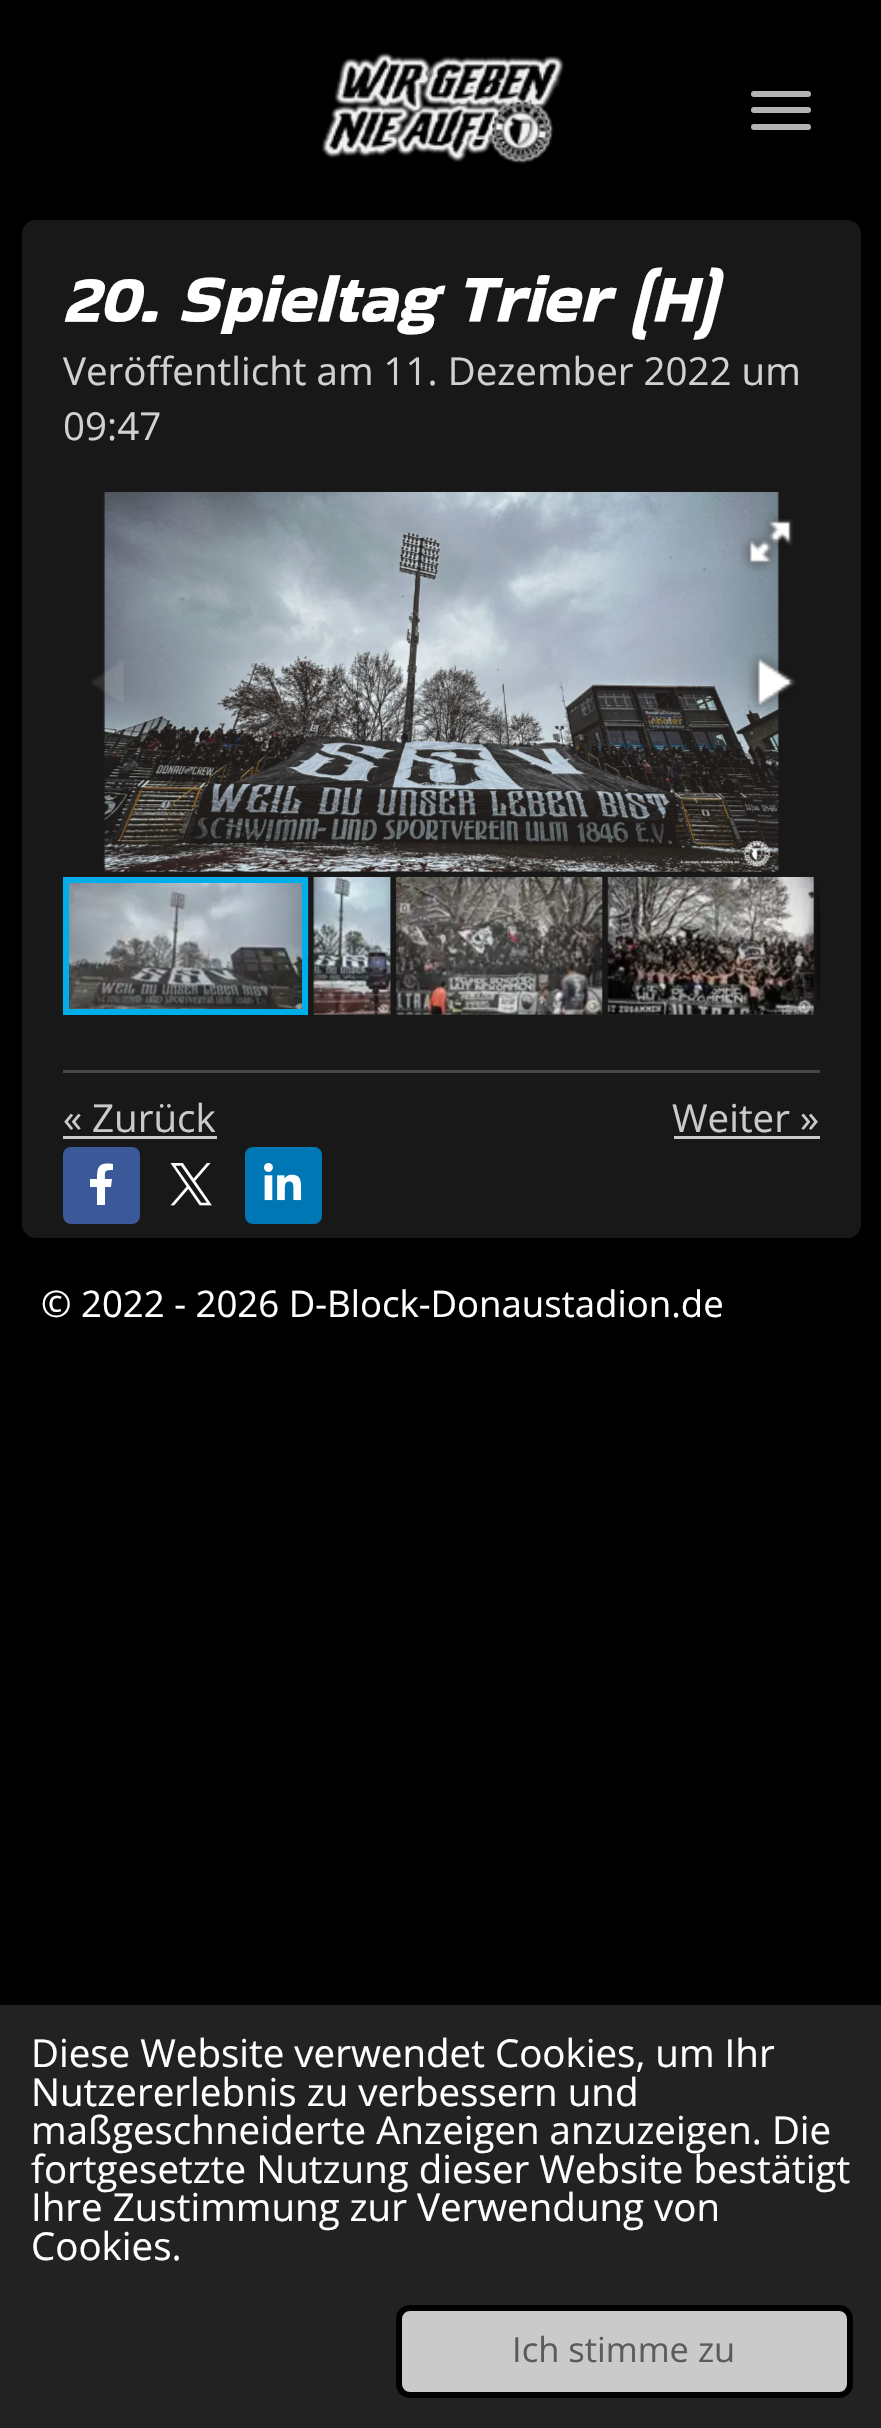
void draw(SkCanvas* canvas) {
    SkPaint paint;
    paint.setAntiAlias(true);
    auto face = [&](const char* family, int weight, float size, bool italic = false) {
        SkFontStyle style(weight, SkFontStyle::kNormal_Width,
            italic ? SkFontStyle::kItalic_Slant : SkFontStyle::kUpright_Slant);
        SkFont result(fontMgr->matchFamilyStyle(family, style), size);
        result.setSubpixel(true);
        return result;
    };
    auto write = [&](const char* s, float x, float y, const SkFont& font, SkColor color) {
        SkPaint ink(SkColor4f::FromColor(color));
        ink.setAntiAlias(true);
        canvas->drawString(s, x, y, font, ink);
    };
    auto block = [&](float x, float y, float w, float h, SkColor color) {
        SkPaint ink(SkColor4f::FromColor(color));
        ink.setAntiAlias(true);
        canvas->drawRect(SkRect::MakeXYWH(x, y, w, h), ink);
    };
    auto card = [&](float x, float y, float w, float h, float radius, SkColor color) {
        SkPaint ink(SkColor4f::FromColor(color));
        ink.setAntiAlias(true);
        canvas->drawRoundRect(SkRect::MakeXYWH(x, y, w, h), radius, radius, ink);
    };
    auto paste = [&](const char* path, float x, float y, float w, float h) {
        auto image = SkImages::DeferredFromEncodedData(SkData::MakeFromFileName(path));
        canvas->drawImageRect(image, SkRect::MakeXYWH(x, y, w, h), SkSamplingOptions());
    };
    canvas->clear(SK_ColorBLACK);
    paste("pic1.png", 321, 52, 243, 112);
    card(751, 107, 60, 6, 3, SkColorSetRGB(179, 179, 179));
    card(751, 91, 60, 6, 3, SkColorSetRGB(179, 179, 179));
    card(751, 124, 60, 6, 3, SkColorSetRGB(179, 179, 179));
    card(22, 220, 839, 1018, 14, SkColorSetRGB(24, 24, 24));
    auto kFont1 = face("Bakbak One", 400, 68.5f, true);
    write("20. Spieltag Trier (H)", 63, 322, kFont1, SK_ColorWHITE);
    auto kFont2 = face("Open Sans", 400, 38.5f);
    write("Veröffentlicht am 11. Dezember 2022 um", 63, 385, kFont2, SkColorSetRGB(209, 209, 209));
    write("09:47", 63, 440, kFont2, SkColorSetRGB(209, 209, 209));
    paste("pic2.png", 103, 492, 676, 380);
    paste("pic3.png", 740, 512, 53, 60);
    paste("pic4.png", 90, 660, 34, 43);
    paste("pic5.png", 747, 653, 49, 59);
    paste("pic6.png", 69, 877, 240, 138);
    paint.setStyle(SkPaint::kStroke_Style);
    paint.setStrokeWidth(6);
    paint.setColor(SkColorSetRGB(0, 175, 234));
    canvas->drawRect(SkRect::MakeXYWH(66, 880, 239, 132), paint);
    block(314, 877, 77, 138, SkColorSetRGB(45, 45, 45));
    paste("pic7.png", 313, 877, 78, 138);
    block(396, 877, 206, 138, SkColorSetRGB(45, 45, 45));
    paste("pic8.png", 395, 877, 208, 138);
    block(608, 877, 206, 138, SkColorSetRGB(45, 45, 45));
    paste("pic9.png", 607, 877, 207, 138);
    paint.setStyle(SkPaint::kFill_Style);
    {
        const SkColor colors[] = {SkColorSetARGB(102, 0, 0, 0), SkColorSetARGB(0, 0, 0, 0)};
        const float stops[] = {0, 1};
        SkMatrix m = SkMatrix::Translate(820, 946).preScale(14, 74);
        paint.setShader(SkGradientShader::MakeRadial({0, 0}, 1, colors, stops, 2, SkTileMode::kClamp, 0, &m));
        paint.setAlpha(255);
    }
    canvas->drawRect(SkRect::MakeXYWH(807, 885, 13, 115), paint);
    {
        const SkColor colors[] = {SkColorSetARGB(0, 0, 0, 0), SkColorSetARGB(51, 0, 0, 0), SkColorSetARGB(77, 0, 0, 0), SkColorSetARGB(0, 0, 0, 0)};
        const float stops[] = {0, 0.25f, 0.75f, 1};
        const SkPoint ends[] = {{818, 872}, {818, 1020}};
        paint.setShader(SkGradientShader::MakeLinear(ends, colors, stops, 4, SkTileMode::kClamp));
        paint.setAlpha(255);
    }
    canvas->drawRect(SkRect::MakeXYWH(817, 895, 3, 111), paint);
    block(63, 1070, 757, 3, SkColorSetRGB(70, 70, 70));
    write("« Zurück", 63, 1132, kFont2, SkColorSetRGB(202, 202, 202));
    block(63, 1136, 154, 3, SkColorSetRGB(202, 202, 202));
    write("Weiter »", 672, 1132, kFont2, SkColorSetRGB(202, 202, 202));
    block(674, 1136, 146, 3, SkColorSetRGB(202, 202, 202));
    card(63, 1147, 77, 77, 8, SkColorSetRGB(59, 89, 152));
    paint.setShader(nullptr);
    paint.setColor(SK_ColorWHITE);
    canvas->drawPath(SkPathBuilder().moveTo(111, 1187).lineTo(112, 1179).lineTo(105, 1179).cubicTo(105, 1171, 104, 1170, 113, 1170).lineTo(113, 1164).cubicTo(99, 1162, 97, 1166, 97, 1179).lineTo(90, 1179).lineTo(90, 1187).lineTo(97, 1187).lineTo(97, 1205).lineTo(105, 1205).lineTo(105, 1187).close().detach(), paint);
    paste("pic10.png", 170, 1163, 42, 43);
    card(245, 1147, 77, 77, 8, SkColorSetRGB(0, 119, 181));
    paste("pic11.png", 264, 1163, 38, 38);
    auto kFont3 = face("Open Sans", 400, 36.6f);
    write("© 2022 - 2026 D-Block-Donaustadion.de", 41, 1317, kFont3, SK_ColorWHITE);
    block(0, 2005, 881, 423, SkColorSetRGB(34, 34, 34));
    write("Diese Website verwendet Cookies, um Ihr", 31, 2067, kFont2, SK_ColorWHITE);
    write("Nutzererlebnis zu verbessern und", 31, 2106, kFont2, SK_ColorWHITE);
    write("maßgeschneiderte Anzeigen anzuzeigen. Die", 31, 2144, kFont2, SK_ColorWHITE);
    write("fortgesetzte Nutzung dieser Website bestätigt", 31, 2183, kFont2, SK_ColorWHITE);
    write("Ihre Zustimmung zur Verwendung von", 31, 2221, kFont2, SK_ColorWHITE);
    write("Cookies.", 31, 2260, kFont2, SK_ColorWHITE);
    paint.setColor(SkColorSetRGB(202, 202, 202));
    canvas->drawRoundRect(SkRect::MakeXYWH(399, 2308, 451, 87), 11, 11, paint);
    paint.setStyle(SkPaint::kStroke_Style);
    paint.setColor(SK_ColorBLACK);
    canvas->drawRoundRect(SkRect::MakeXYWH(399, 2308, 451, 87), 11, 11, paint);
    auto kFont4 = face("Open Sans", 400, 34.5f);
    write("Ich stimme zu", 512, 2362, kFont4, SkColorSetRGB(91, 91, 91));
}
